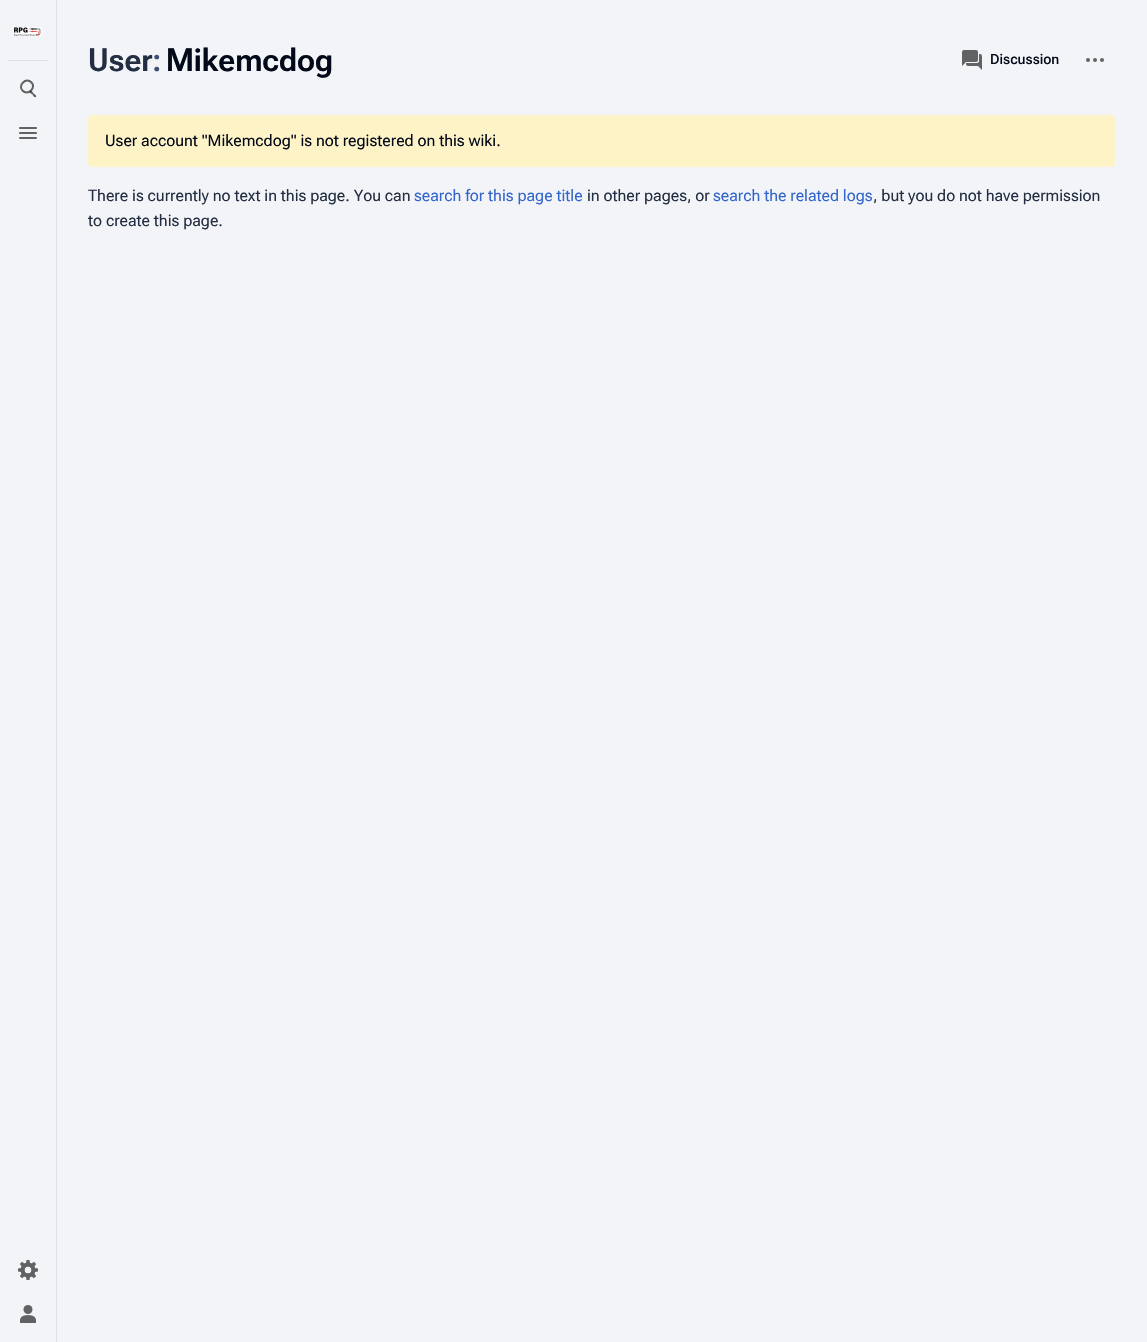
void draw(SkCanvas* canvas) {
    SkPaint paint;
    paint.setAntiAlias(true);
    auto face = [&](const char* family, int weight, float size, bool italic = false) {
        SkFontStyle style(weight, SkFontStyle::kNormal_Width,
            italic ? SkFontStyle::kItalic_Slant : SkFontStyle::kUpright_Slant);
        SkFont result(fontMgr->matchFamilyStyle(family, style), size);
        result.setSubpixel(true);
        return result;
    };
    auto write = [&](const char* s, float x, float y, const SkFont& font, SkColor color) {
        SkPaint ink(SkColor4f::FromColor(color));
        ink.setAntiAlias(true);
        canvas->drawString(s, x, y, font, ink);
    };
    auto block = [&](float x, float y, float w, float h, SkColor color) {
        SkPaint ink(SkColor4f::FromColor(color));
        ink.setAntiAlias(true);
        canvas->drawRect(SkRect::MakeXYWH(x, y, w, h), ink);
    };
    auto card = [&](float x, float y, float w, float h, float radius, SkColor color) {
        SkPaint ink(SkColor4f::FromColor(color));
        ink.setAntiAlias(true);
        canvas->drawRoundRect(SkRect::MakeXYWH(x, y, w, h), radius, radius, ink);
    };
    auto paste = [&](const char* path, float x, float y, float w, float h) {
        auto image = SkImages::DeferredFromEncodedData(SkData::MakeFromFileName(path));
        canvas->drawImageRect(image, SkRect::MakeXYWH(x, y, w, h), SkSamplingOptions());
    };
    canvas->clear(SkColorSetRGB(242, 244, 248));
    block(56, 0, 1, 1342, SkColorSetRGB(223, 224, 228));
    block(8, 60, 40, 1, SkColorSetRGB(223, 224, 228));
    paste("pic1.png", 13, 27, 29, 9);
    paint.setColor(SkColorSetRGB(97, 98, 99));
    canvas->drawPath(SkPathBuilder().moveTo(30, 91).cubicTo(31.5f, 90, 33, 92.5f, 33.5f, 93.5f).cubicTo(34.5f, 94, 37, 95.5f, 36, 97).cubicTo(34.5f, 98, 33, 95.5f, 32.5f, 94.5f).cubicTo(31.5f, 94, 29, 92.5f, 30, 91).close().detach(), paint);
    paint.setStyle(SkPaint::kStroke_Style);
    paint.setStrokeWidth(2);
    paint.setColor(SkColorSetARGB(153, 0, 0, 0));
    canvas->drawPath(SkPathBuilder().moveTo(23, 82.5f).cubicTo(28.5f, 76.5f, 37, 85, 31, 90.5f).cubicTo(25.5f, 96.5f, 17, 88, 23, 82.5f).close().detach(), paint);
    card(19, 127, 18, 2, 1, SkColorSetRGB(97, 98, 99));
    card(19, 132, 18, 2, 1, SkColorSetRGB(97, 98, 99));
    card(19, 137, 18, 2, 1, SkColorSetRGB(97, 98, 99));
    paste("pic2.png", 18, 1260, 20, 20);
    paste("pic3.png", 20, 1305, 16, 18);
    auto kFont1 = face("Roboto Flex", 600, 32);
    write("User", 88, 71, kFont1, SkColorSetRGB(36, 46, 66));
    write(":", 152, 71, kFont1, SkColorSetRGB(62, 80, 116));
    write("Mikemcdog", 166, 71, kFont1, SkColorSetRGB(2, 9, 24));
    paste("pic4.png", 962, 50, 20, 20);
    auto kFont2 = face("Roboto Flex", 500, 14);
    write("Discussion", 990, 64, kFont2, SkColorSetRGB(2, 9, 24));
    paste("pic5.png", 1086, 58, 18, 4);
    paint.setStyle(SkPaint::kFill_Style);
    paint.setColor(SkColorSetRGB(254, 243, 199));
    canvas->drawRoundRect(SkRect::MakeXYWH(88.5f, 115.5f, 1026, 51), 3.5f, 3.5f, paint);
    paint.setStyle(SkPaint::kStroke_Style);
    paint.setStrokeWidth(1);
    canvas->drawRoundRect(SkRect::MakeXYWH(88.5f, 115.5f, 1026, 51), 3.5f, 3.5f, paint);
    auto kFont3 = face("Roboto Flex", 400, 16);
    write("User account \"Mikemcdog\" is not registered on this wiki.", 105, 146, kFont3, SkColorSetRGB(2, 9, 24));
    write("There is currently no text in this page. You can", 88, 201, kFont3, SkColorSetRGB(36, 46, 66));
    write("search for this page title", 414, 201, kFont3, SkColorSetRGB(51, 102, 204));
    write("in other pages, or", 587, 201, kFont3, SkColorSetRGB(36, 46, 66));
    write("search the related logs", 713, 201, kFont3, SkColorSetRGB(51, 102, 204));
    write(", but you do not have permission", 873, 201, kFont3, SkColorSetRGB(36, 46, 66));
    write("to create this page.", 88, 226, kFont3, SkColorSetRGB(36, 46, 66));
}
